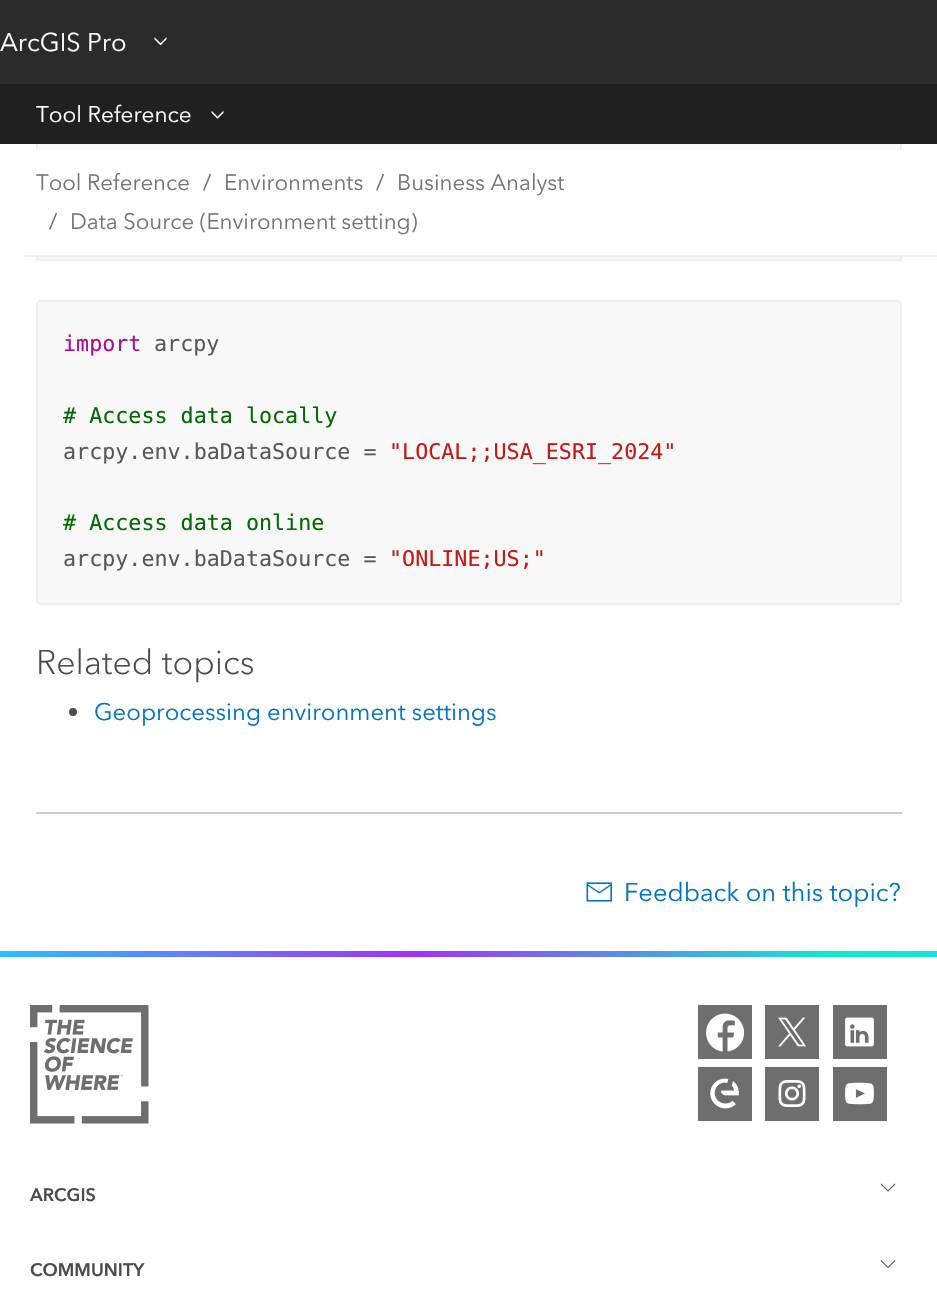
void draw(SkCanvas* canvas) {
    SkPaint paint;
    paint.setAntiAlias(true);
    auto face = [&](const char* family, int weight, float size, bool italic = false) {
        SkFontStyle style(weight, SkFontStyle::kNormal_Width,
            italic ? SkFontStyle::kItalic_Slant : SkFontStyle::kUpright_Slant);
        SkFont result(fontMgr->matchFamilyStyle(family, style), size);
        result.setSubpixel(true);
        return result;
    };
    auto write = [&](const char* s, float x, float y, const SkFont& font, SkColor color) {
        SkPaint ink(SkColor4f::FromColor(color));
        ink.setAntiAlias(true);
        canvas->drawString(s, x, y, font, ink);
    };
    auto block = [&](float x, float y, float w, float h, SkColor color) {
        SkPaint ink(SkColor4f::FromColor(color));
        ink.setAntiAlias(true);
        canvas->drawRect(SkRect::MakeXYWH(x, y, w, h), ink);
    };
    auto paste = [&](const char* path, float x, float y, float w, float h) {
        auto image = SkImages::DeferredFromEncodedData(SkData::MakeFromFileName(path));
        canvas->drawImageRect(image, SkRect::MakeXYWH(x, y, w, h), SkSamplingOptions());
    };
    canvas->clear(SK_ColorWHITE);
    block(38, 144, 862, 115, SkColorSetRGB(248, 248, 248));
    paint.setStyle(SkPaint::kStroke_Style);
    paint.setStrokeWidth(2);
    paint.setColor(SkColorSetRGB(239, 239, 239));
    canvas->drawRect(SkRect::MakeXYWH(37, 49, 864, 211), paint);
    block(0, 0, 937, 84, SkColorSetRGB(43, 43, 43));
    auto kFont1 = face("Avenir Next", 400, 25.5f);
    write("ArcGIS Pro", 0, 51, kFont1, SK_ColorWHITE);
    paste("pic1.png", 154, 37, 13, 9);
    block(0, 84, 937, 60, SkColorSetRGB(32, 32, 32));
    auto kFont2 = face("Avenir Next", 400, 22.5f);
    write("Tool Reference", 36, 122, kFont2, SK_ColorWHITE);
    paste("pic2.png", 211, 110, 13, 9);
    block(36, 150, 866, 105, SK_ColorWHITE);
    block(24, 255, 913, 2, SkColorSetRGB(237, 237, 237));
    auto kFont3 = face("Avenir Next", 400, 22.25f);
    write("Tool Reference", 36, 190, kFont3, SkColorSetRGB(117, 117, 117));
    write("/", 203, 190, kFont3, SkColorSetRGB(110, 110, 110));
    write("Environments", 224, 190, kFont3, SkColorSetRGB(117, 117, 117));
    write("/", 376, 190, kFont3, SkColorSetRGB(110, 110, 110));
    write("Business Analyst", 397, 190, kFont3, SkColorSetRGB(117, 117, 117));
    write("/", 49, 229, kFont3, SkColorSetRGB(110, 110, 110));
    write("Data Source (Environment setting)", 70, 229, kFont3, SkColorSetRGB(117, 117, 117));
    paint.setStyle(SkPaint::kFill_Style);
    paint.setColor(SkColorSetRGB(248, 248, 248));
    canvas->drawRoundRect(SkRect::MakeXYWH(37, 301, 864, 303), 4, 4, paint);
    paint.setStyle(SkPaint::kStroke_Style);
    paint.setColor(SkColorSetRGB(239, 239, 239));
    canvas->drawRoundRect(SkRect::MakeXYWH(37, 301, 864, 303), 4, 4, paint);
    auto kFont4 = face("DejaVu Sans Mono", 400, 21.7f);
    write("import", 63, 351, kFont4, SkColorSetRGB(170, 13, 145));
    write("arcpy", 154, 351, kFont4, SkColorSetRGB(89, 89, 89));
    write("# Access data locally", 63, 423, kFont4, SkColorSetRGB(0, 106, 0));
    write("arcpy.env.baDataSource =", 63, 459, kFont4, SkColorSetRGB(89, 89, 89));
    write("\"LOCAL;;USA_ESRI_2024\"", 389, 459, kFont4, SkColorSetRGB(196, 26, 22));
    write("# Access data online", 63, 530, kFont4, SkColorSetRGB(0, 106, 0));
    write("arcpy.env.baDataSource =", 63, 566, kFont4, SkColorSetRGB(89, 89, 89));
    write("\"ONLINE;US;\"", 389, 566, kFont4, SkColorSetRGB(196, 26, 22));
    auto kFont5 = face("Avenir Next", 300, 34);
    write("Related topics", 36, 674, kFont5, SkColorSetRGB(76, 76, 76));
    paint.setStyle(SkPaint::kFill_Style);
    paint.setColor(SkColorSetRGB(76, 76, 76));
    canvas->drawCircle(73, 712, 4, paint);
    auto kFont6 = face("Avenir Next", 400, 23.9f);
    write("Geoprocessing environment settings", 94, 720, kFont6, SkColorSetRGB(0, 118, 188));
    block(36, 812, 866, 2, SkColorSetRGB(204, 204, 204));
    paste("pic3.png", 586, 882, 26, 20);
    write("Feedback on this topic?", 624, 901, kFont1, SkColorSetRGB(0, 118, 188));
    {
        const SkColor colors[] = {SkColorSetRGB(41, 191, 255), SkColorSetRGB(162, 49, 255), SkColorSetRGB(13, 236, 205), SkColorSetRGB(41, 191, 255)};
        const float stops[] = {0, 0.33f, 0.67f, 1};
        const SkPoint ends[] = {{0, 954}, {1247, 954}};
        paint.setShader(SkGradientShader::MakeLinear(ends, colors, stops, 4, SkTileMode::kClamp));
        paint.setAlpha(255);
    }
    canvas->drawRect(SkRect::MakeXYWH(0, 951, 937, 6), paint);
    paste("pic4.png", 30, 1005, 119, 119);
    block(698, 1005, 54, 54, SkColorSetRGB(110, 110, 110));
    paste("pic5.png", 706, 1013, 39, 39);
    block(765, 1005, 54, 54, SkColorSetRGB(110, 110, 110));
    paste("pic6.png", 778, 1017, 29, 30);
    block(833, 1005, 54, 54, SkColorSetRGB(110, 110, 110));
    paste("pic7.png", 845, 1017, 29, 30);
    block(698, 1067, 54, 54, SkColorSetRGB(110, 110, 110));
    paste("pic8.png", 710, 1078, 29, 31);
    block(765, 1067, 54, 54, SkColorSetRGB(110, 110, 110));
    paste("pic9.png", 778, 1080, 28, 27);
    block(833, 1067, 54, 54, SkColorSetRGB(110, 110, 110));
    paste("pic10.png", 845, 1082, 29, 23);
    auto kFont7 = face("Avenir Next", 700, 18);
    write("ARCGIS", 30, 1201, kFont7, SkColorSetRGB(76, 76, 76));
    paste("pic11.png", 881, 1183, 14, 9);
    write("COMMUNITY", 30, 1276, kFont7, SkColorSetRGB(76, 76, 76));
    paste("pic12.png", 881, 1260, 14, 8);
}
